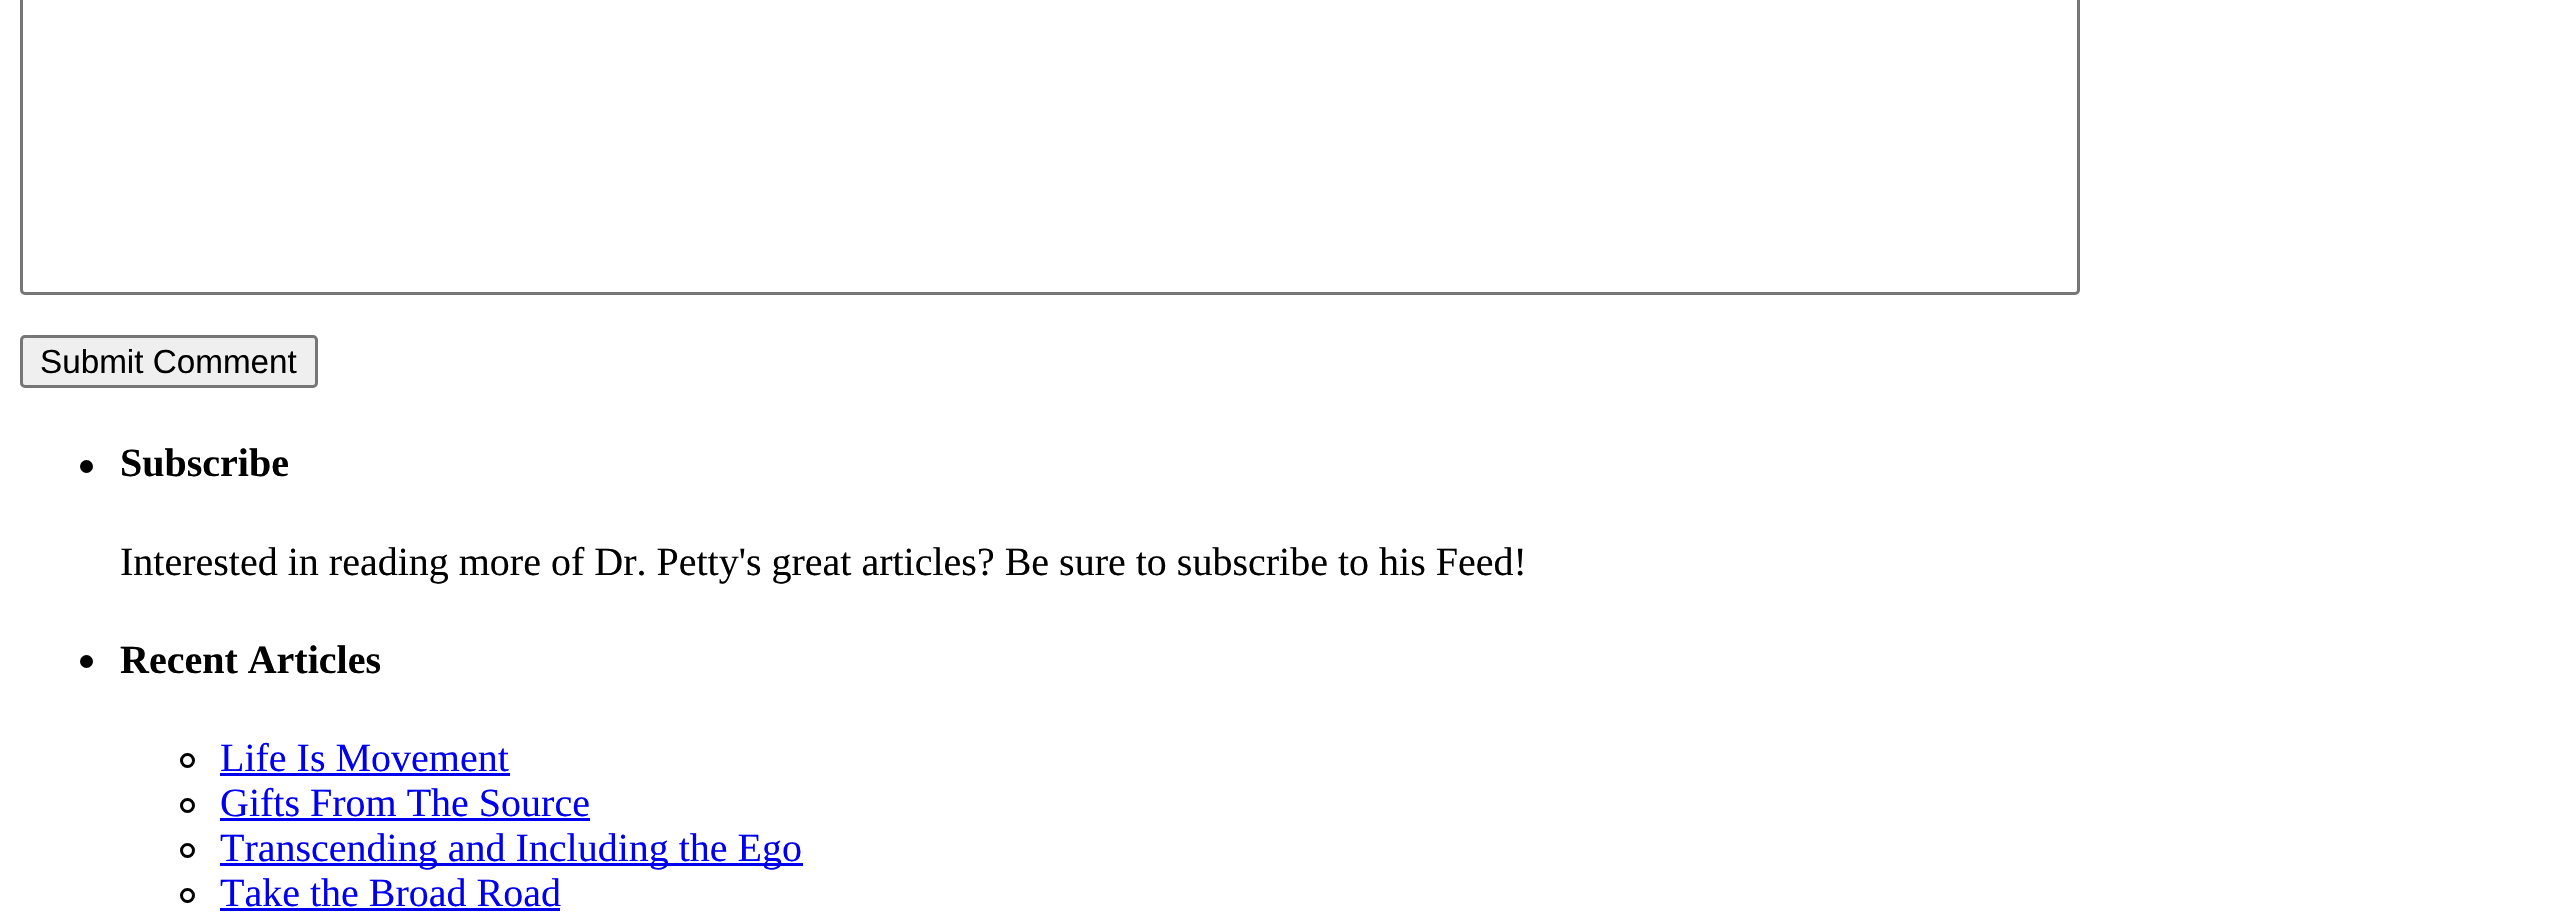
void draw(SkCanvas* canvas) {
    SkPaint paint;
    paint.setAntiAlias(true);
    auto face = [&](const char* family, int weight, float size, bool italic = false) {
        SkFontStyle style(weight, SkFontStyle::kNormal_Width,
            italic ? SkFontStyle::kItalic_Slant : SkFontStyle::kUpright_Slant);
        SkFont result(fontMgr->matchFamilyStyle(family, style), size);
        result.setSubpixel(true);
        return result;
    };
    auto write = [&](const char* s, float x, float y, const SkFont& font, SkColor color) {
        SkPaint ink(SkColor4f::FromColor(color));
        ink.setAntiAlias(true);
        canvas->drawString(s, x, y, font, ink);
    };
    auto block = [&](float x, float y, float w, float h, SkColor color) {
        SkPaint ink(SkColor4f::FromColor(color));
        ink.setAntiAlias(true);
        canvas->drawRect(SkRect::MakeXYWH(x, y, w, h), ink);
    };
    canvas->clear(SK_ColorWHITE);
    paint.setStyle(SkPaint::kStroke_Style);
    paint.setStrokeWidth(3);
    paint.setColor(SkColorSetRGB(118, 118, 118));
    canvas->drawRoundRect(SkRect::MakeXYWH(21.5f, -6.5f, 2057, 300), 3.5f, 3.5f, paint);
    paint.setStyle(SkPaint::kFill_Style);
    paint.setColor(SkColorSetRGB(239, 239, 239));
    canvas->drawRoundRect(SkRect::MakeXYWH(21.5f, 336.5f, 295, 50), 3.5f, 3.5f, paint);
    paint.setStyle(SkPaint::kStroke_Style);
    paint.setColor(SkColorSetRGB(118, 118, 118));
    canvas->drawRoundRect(SkRect::MakeXYWH(21.5f, 336.5f, 295, 50), 3.5f, 3.5f, paint);
    auto kFont1 = face("Liberation Sans", 400, 33.25f);
    write("Submit Comment", 40, 373, kFont1, SK_ColorBLACK);
    paint.setStyle(SkPaint::kFill_Style);
    paint.setColor(SK_ColorBLACK);
    canvas->drawCircle(86.5f, 466.5f, 6.5f, paint);
    auto kFont2 = face("Liberation Serif", 700, 40);
    write("Subscribe", 120, 476, kFont2, SK_ColorBLACK);
    auto kFont3 = face("Liberation Serif", 400, 40);
    write("Interested in reading more of Dr. Petty's great articles? Be sure to subscribe to his Feed!", 120, 575, kFont3, SK_ColorBLACK);
    canvas->drawCircle(86.5f, 661.5f, 6.5f, paint);
    write("Recent Articles", 120, 673, kFont2, SK_ColorBLACK);
    paint.setStyle(SkPaint::kStroke_Style);
    canvas->drawCircle(187.5f, 760.5f, 6, paint);
    write("Life Is Movement", 220, 771, kFont3, SkColorSetRGB(0, 0, 238));
    block(220, 773, 290, 3, SkColorSetRGB(0, 0, 238));
    canvas->drawCircle(187.5f, 805.5f, 6, paint);
    write("Gifts From The Source", 220, 816, kFont3, SkColorSetRGB(0, 0, 238));
    block(220, 818, 370, 3, SkColorSetRGB(0, 0, 238));
    canvas->drawCircle(187.5f, 850.5f, 6, paint);
    block(220, 863, 583, 3, SkColorSetRGB(0, 0, 238));
    write("Transcending and Including the Ego", 220, 861, kFont3, SkColorSetRGB(0, 0, 238));
    canvas->drawCircle(187.5f, 895.5f, 6, paint);
    write("Take the Broad Road", 220, 906, kFont3, SkColorSetRGB(0, 0, 238));
    block(220, 908, 340, 3, SkColorSetRGB(0, 0, 238));
}
